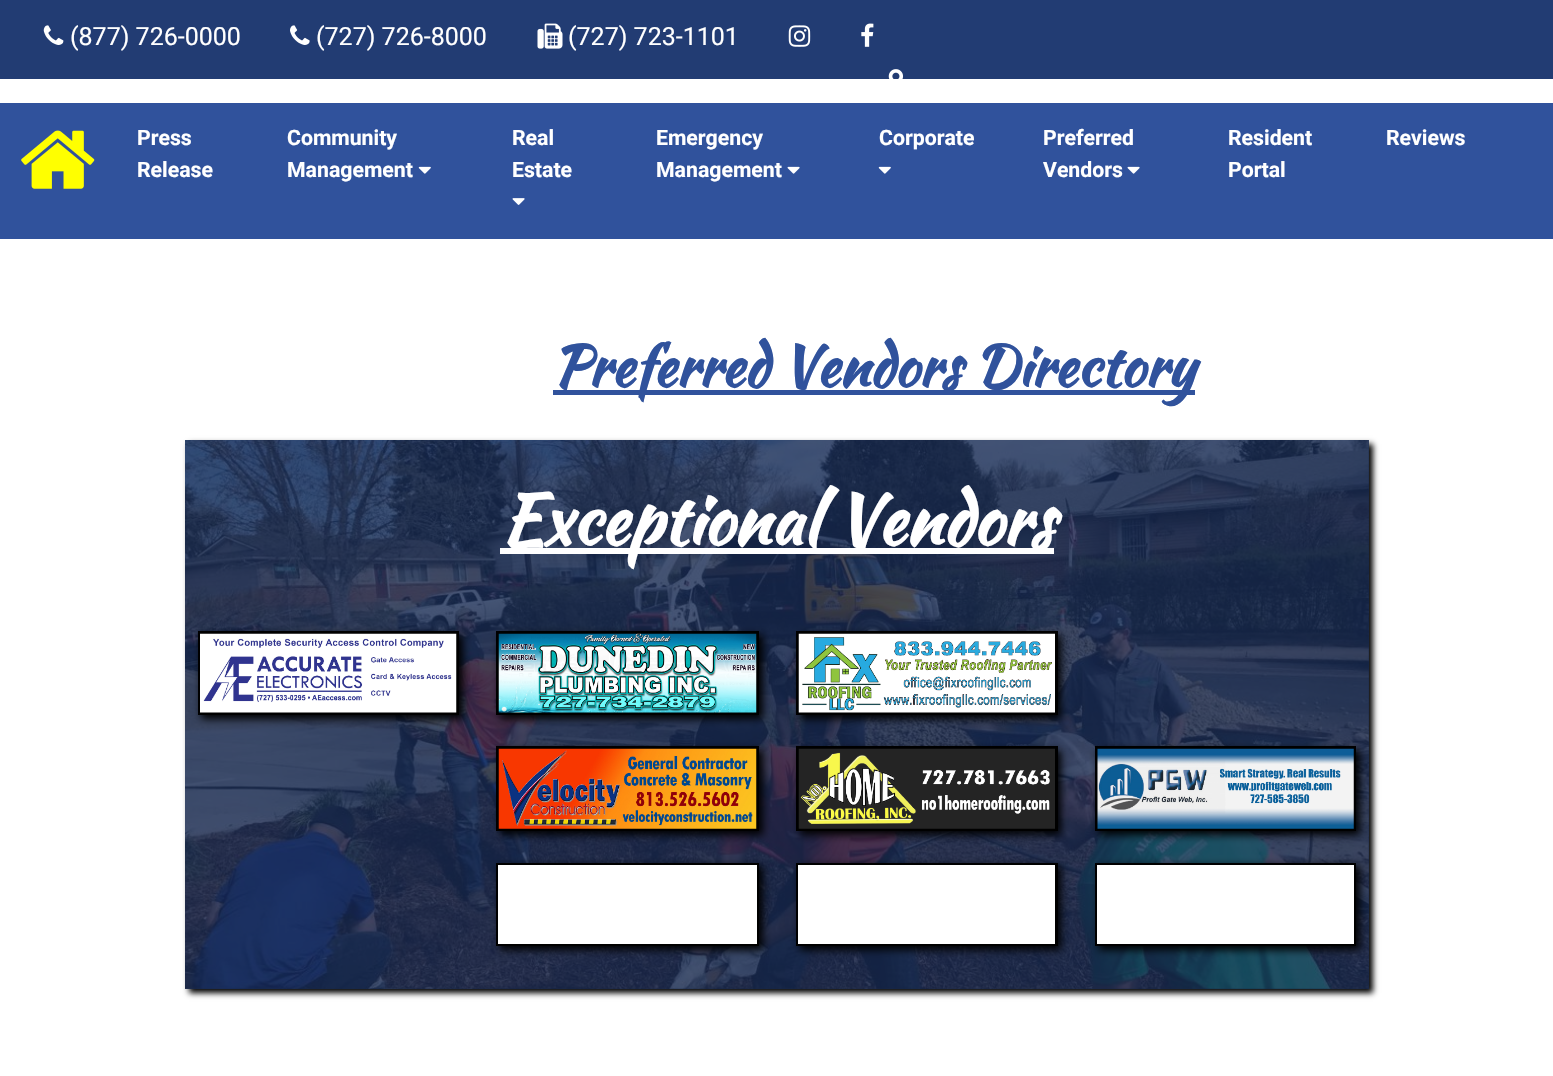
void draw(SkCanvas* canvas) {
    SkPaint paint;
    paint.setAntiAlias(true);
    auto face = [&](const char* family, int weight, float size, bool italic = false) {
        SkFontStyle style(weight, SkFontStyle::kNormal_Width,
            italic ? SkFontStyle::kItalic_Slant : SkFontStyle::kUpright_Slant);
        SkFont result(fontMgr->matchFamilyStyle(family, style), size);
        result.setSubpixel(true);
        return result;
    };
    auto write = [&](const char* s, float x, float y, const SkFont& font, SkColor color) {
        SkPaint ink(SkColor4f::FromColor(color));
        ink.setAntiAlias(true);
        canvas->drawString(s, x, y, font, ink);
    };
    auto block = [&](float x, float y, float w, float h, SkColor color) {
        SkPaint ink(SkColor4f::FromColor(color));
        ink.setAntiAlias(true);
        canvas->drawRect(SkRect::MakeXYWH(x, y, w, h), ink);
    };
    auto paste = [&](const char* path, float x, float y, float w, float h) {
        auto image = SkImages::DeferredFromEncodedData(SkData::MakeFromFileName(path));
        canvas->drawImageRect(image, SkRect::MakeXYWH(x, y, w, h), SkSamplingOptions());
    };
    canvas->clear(SK_ColorWHITE);
    block(0, 0, 1553, 79, SkColorSetRGB(34, 60, 115));
    paste("pic1.png", 43, 25, 21, 20);
    auto kFont1 = face("Roboto", 400, 25);
    write("(877) 726-0000", 70, 45, kFont1, SK_ColorWHITE);
    paste("pic2.png", 290, 25, 20, 20);
    write("(727) 726-8000", 316, 45, kFont1, SK_ColorWHITE);
    paste("pic3.png", 537, 23, 26, 26);
    write("(727) 723-1101", 568, 45, kFont1, SK_ColorWHITE);
    paste("pic4.png", 788, 25, 23, 22);
    paste("pic5.png", 861, 23, 13, 24);
    paste("pic6.png", 888, 69, 15, 10);
    block(0, 103, 1553, 136, SkColorSetRGB(48, 82, 156));
    paste("pic7.png", 21, 130, 74, 59);
    auto kFont2 = face("Roboto", 700, 21.25f);
    write("Press", 137, 145, kFont2, SK_ColorWHITE);
    write("Release", 137, 177, kFont2, SK_ColorWHITE);
    write("Community", 287, 145, kFont2, SK_ColorWHITE);
    write("Management", 287, 177, kFont2, SK_ColorWHITE);
    paste("pic8.png", 418, 166, 13, 8);
    write("Real", 512, 145, kFont2, SK_ColorWHITE);
    write("Estate", 512, 177, kFont2, SK_ColorWHITE);
    paste("pic9.png", 512, 198, 13, 7);
    write("Emergency", 656, 145, kFont2, SK_ColorWHITE);
    write("Management", 656, 177, kFont2, SK_ColorWHITE);
    paste("pic10.png", 787, 166, 13, 8);
    write("Corporate", 879, 145, kFont2, SK_ColorWHITE);
    paste("pic8.png", 878, 166, 13, 8);
    write("Preferred", 1043, 145, kFont2, SK_ColorWHITE);
    write("Vendors", 1043, 177, kFont2, SK_ColorWHITE);
    paste("pic10.png", 1127, 166, 13, 8);
    write("Resident", 1228, 145, kFont2, SK_ColorWHITE);
    write("Portal", 1228, 177, kFont2, SK_ColorWHITE);
    write("Reviews", 1386, 145, kFont2, SK_ColorWHITE);
    block(553, 390, 642, 5, SkColorSetRGB(48, 82, 156));
    auto kFont3 = face("Kaushan Script", 700, 56.25f);
    write("Preferred Vendors Directory", 552, 386, kFont3, SkColorSetRGB(48, 82, 156));
    paint.setColor(SK_ColorBLACK);
    paint.setMaskFilter(SkMaskFilter::MakeBlur(kNormal_SkBlurStyle, 3));
    canvas->drawRect(SkRect::MakeXYWH(189, 444, 1184, 549), paint);
    paint.setMaskFilter(nullptr);
    paste("pic11.png", 185, 440, 1184, 549);
    block(185, 440, 1184, 549, SkColorSetARGB(204, 24, 42, 82));
    block(500, 548, 554, 6, SK_ColorWHITE);
    auto kFont4 = face("Kaushan Script", 700, 68.75f);
    write("Exceptional Vendors", 500, 544, kFont4, SK_ColorWHITE);
    paint.setMaskFilter(SkMaskFilter::MakeBlur(kNormal_SkBlurStyle, 4));
    canvas->drawRect(SkRect::MakeXYWH(201, 635, 262, 84), paint);
    paint.setMaskFilter(nullptr);
    paint.setStyle(SkPaint::kStroke_Style);
    paint.setStrokeWidth(3);
    canvas->drawRect(SkRect::MakeXYWH(199.5f, 632.5f, 258, 81), paint);
    paste("pic12.png", 200, 633, 257, 80);
    paint.setStyle(SkPaint::kFill_Style);
    paint.setMaskFilter(SkMaskFilter::MakeBlur(kNormal_SkBlurStyle, 4));
    canvas->drawRect(SkRect::MakeXYWH(500, 635, 263, 84), paint);
    paint.setMaskFilter(nullptr);
    paint.setStyle(SkPaint::kStroke_Style);
    canvas->drawRect(SkRect::MakeXYWH(497.5f, 632.5f, 260, 81), paint);
    paste("pic13.png", 498, 633, 259, 80);
    paint.setStyle(SkPaint::kFill_Style);
    paint.setMaskFilter(SkMaskFilter::MakeBlur(kNormal_SkBlurStyle, 4));
    canvas->drawRect(SkRect::MakeXYWH(800, 635, 261, 84), paint);
    paint.setMaskFilter(nullptr);
    paint.setStyle(SkPaint::kStroke_Style);
    canvas->drawRect(SkRect::MakeXYWH(797.5f, 632.5f, 259, 81), paint);
    paste("pic14.png", 798, 633, 257, 80);
    paint.setStyle(SkPaint::kFill_Style);
    paint.setMaskFilter(SkMaskFilter::MakeBlur(kNormal_SkBlurStyle, 4));
    canvas->drawRect(SkRect::MakeXYWH(500, 750, 263, 85), paint);
    paint.setMaskFilter(nullptr);
    paint.setStyle(SkPaint::kStroke_Style);
    canvas->drawRect(SkRect::MakeXYWH(497.5f, 747.5f, 260, 82), paint);
    paste("pic15.png", 498, 748, 259, 81);
    paint.setStyle(SkPaint::kFill_Style);
    paint.setMaskFilter(SkMaskFilter::MakeBlur(kNormal_SkBlurStyle, 4));
    canvas->drawRect(SkRect::MakeXYWH(800, 750, 261, 85), paint);
    paint.setMaskFilter(nullptr);
    paint.setStyle(SkPaint::kStroke_Style);
    canvas->drawRect(SkRect::MakeXYWH(797.5f, 747.5f, 259, 82), paint);
    paste("pic16.png", 798, 748, 257, 81);
    paint.setStyle(SkPaint::kFill_Style);
    paint.setMaskFilter(SkMaskFilter::MakeBlur(kNormal_SkBlurStyle, 4));
    canvas->drawRect(SkRect::MakeXYWH(1099, 750, 261, 85), paint);
    paint.setMaskFilter(nullptr);
    paint.setStyle(SkPaint::kStroke_Style);
    canvas->drawRect(SkRect::MakeXYWH(1096.5f, 747.5f, 258, 82), paint);
    paste("pic17.png", 1097, 748, 257, 81);
    paint.setStyle(SkPaint::kFill_Style);
    paint.setMaskFilter(SkMaskFilter::MakeBlur(kNormal_SkBlurStyle, 4));
    canvas->drawRect(SkRect::MakeXYWH(500, 866, 263, 84), paint);
    paint.setMaskFilter(nullptr);
    paint.setStyle(SkPaint::kStroke_Style);
    canvas->drawRect(SkRect::MakeXYWH(497.5f, 864.5f, 260, 80), paint);
    block(498, 865, 259, 79, SK_ColorWHITE);
    paint.setStyle(SkPaint::kFill_Style);
    paint.setMaskFilter(SkMaskFilter::MakeBlur(kNormal_SkBlurStyle, 4));
    canvas->drawRect(SkRect::MakeXYWH(800, 866, 261, 84), paint);
    paint.setMaskFilter(nullptr);
    paint.setStyle(SkPaint::kStroke_Style);
    canvas->drawRect(SkRect::MakeXYWH(797.5f, 864.5f, 259, 80), paint);
    block(798, 865, 257, 79, SK_ColorWHITE);
    paint.setStyle(SkPaint::kFill_Style);
    paint.setMaskFilter(SkMaskFilter::MakeBlur(kNormal_SkBlurStyle, 4));
    canvas->drawRect(SkRect::MakeXYWH(1099, 866, 261, 84), paint);
    paint.setMaskFilter(nullptr);
    paint.setStyle(SkPaint::kStroke_Style);
    canvas->drawRect(SkRect::MakeXYWH(1096.5f, 864.5f, 258, 80), paint);
    block(1097, 865, 257, 79, SK_ColorWHITE);
}
